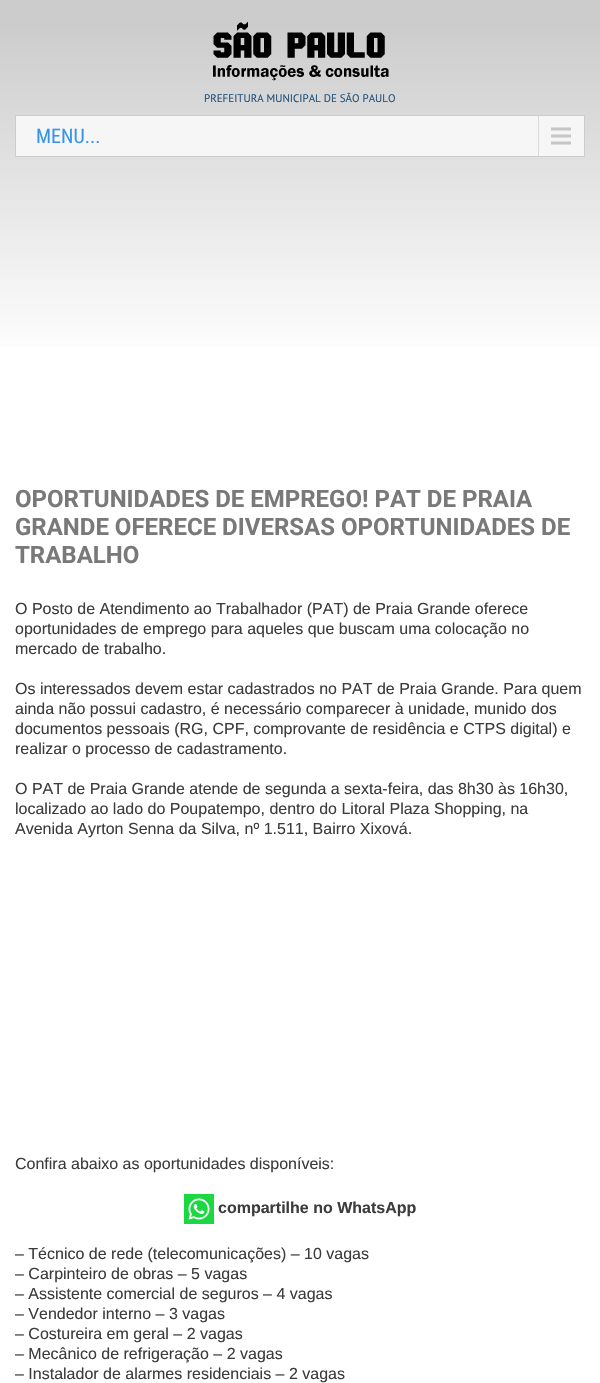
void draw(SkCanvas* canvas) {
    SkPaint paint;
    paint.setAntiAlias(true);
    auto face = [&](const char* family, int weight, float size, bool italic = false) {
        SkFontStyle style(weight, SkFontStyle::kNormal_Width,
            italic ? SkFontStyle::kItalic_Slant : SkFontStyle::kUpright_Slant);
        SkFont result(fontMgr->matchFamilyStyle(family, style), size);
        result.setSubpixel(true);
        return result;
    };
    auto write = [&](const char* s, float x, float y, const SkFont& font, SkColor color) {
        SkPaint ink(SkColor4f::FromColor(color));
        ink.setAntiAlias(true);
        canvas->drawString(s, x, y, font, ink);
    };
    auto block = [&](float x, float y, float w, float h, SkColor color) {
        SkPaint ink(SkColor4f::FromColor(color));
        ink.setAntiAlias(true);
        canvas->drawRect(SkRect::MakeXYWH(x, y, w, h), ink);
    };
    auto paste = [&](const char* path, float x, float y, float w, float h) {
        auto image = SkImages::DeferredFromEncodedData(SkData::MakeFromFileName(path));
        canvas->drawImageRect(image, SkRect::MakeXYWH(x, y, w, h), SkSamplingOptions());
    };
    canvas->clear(SK_ColorWHITE);
    {
        const SkColor colors[] = {SkColorSetRGB(204, 204, 204), SK_ColorWHITE};
        const float stops[] = {0.05f, 0.8f};
        const SkPoint ends[] = {{300, 0}, {300, 455}};
        paint.setShader(SkGradientShader::MakeLinear(ends, colors, stops, 2, SkTileMode::kClamp));
        paint.setAlpha(255);
    }
    canvas->drawRect(SkRect::MakeXYWH(0, 0, 600, 347), paint);
    paste("pic1.png", 213, 21, 176, 60);
    auto kFont1 = face("PT Sans", 400, 11);
    write("PREFEITURA MUNICIPAL DE SÃO PAULO", 204, 102, kFont1, SkColorSetRGB(33, 81, 121));
    block(16, 116, 568, 40, SkColorSetRGB(246, 246, 246));
    paste("pic2.png", 538, 116, 33, 40);
    paint.setStyle(SkPaint::kStroke_Style);
    paint.setStrokeWidth(1);
    paint.setShader(nullptr);
    paint.setColor(SkColorSetRGB(204, 204, 204));
    canvas->drawRect(SkRect::MakeXYWH(15.5f, 115.5f, 569, 41), paint);
    auto kFont2 = face("Roboto Condensed", 400, 20);
    write("MENU...", 36, 143, kFont2, SkColorSetRGB(54, 149, 235));
    auto kFont3 = face("Roboto", 700, 24);
    write("OPORTUNIDADES DE EMPREGO! PAT DE PRAIA", 15, 507, kFont3, SkColorSetRGB(121, 121, 121));
    write("GRANDE OFERECE DIVERSAS OPORTUNIDADES DE", 15, 535, kFont3, SkColorSetRGB(121, 121, 121));
    write("TRABALHO", 15, 563, kFont3, SkColorSetRGB(121, 121, 121));
    auto kFont4 = face("Liberation Sans", 400, 16);
    write("O Posto de Atendimento ao Trabalhador (PAT) de Praia Grande oferece", 15, 614, kFont4, SkColorSetRGB(60, 60, 60));
    write("oportunidades de emprego para aqueles que buscam uma colocação no", 15, 634, kFont4, SkColorSetRGB(60, 60, 60));
    write("mercado de trabalho.", 15, 654, kFont4, SkColorSetRGB(60, 60, 60));
    write("Os interessados devem estar cadastrados no PAT de Praia Grande. Para quem", 15, 694, kFont4, SkColorSetRGB(60, 60, 60));
    write("ainda não possui cadastro, é necessário comparecer à unidade, munido dos", 15, 714, kFont4, SkColorSetRGB(60, 60, 60));
    write("documentos pessoais (RG, CPF, comprovante de residência e CTPS digital) e", 15, 734, kFont4, SkColorSetRGB(60, 60, 60));
    write("realizar o processo de cadastramento.", 15, 754, kFont4, SkColorSetRGB(60, 60, 60));
    write("O PAT de Praia Grande atende de segunda a sexta-feira, das 8h30 às 16h30,", 15, 794, kFont4, SkColorSetRGB(60, 60, 60));
    write("localizado ao lado do Poupatempo, dentro do Litoral Plaza Shopping, na", 15, 814, kFont4, SkColorSetRGB(60, 60, 60));
    write("Avenida Ayrton Senna da Silva, nº 1.511, Bairro Xixová.", 15, 834, kFont4, SkColorSetRGB(60, 60, 60));
    write("Confira abaixo as oportunidades disponíveis:", 15, 1169, kFont4, SkColorSetRGB(60, 60, 60));
    paste("pic3.png", 184, 1194, 30, 30);
    auto kFont5 = face("Liberation Sans", 700, 16);
    write("compartilhe no WhatsApp", 218, 1213, kFont5, SkColorSetRGB(60, 60, 60));
    write("– Técnico de rede (telecomunicações) – 10 vagas", 15, 1259, kFont4, SkColorSetRGB(60, 60, 60));
    write("– Carpinteiro de obras – 5 vagas", 15, 1279, kFont4, SkColorSetRGB(60, 60, 60));
    write("– Assistente comercial de seguros – 4 vagas", 15, 1299, kFont4, SkColorSetRGB(60, 60, 60));
    write("– Vendedor interno – 3 vagas", 15, 1319, kFont4, SkColorSetRGB(60, 60, 60));
    write("– Costureira em geral – 2 vagas", 15, 1339, kFont4, SkColorSetRGB(60, 60, 60));
    write("– Mecânico de refrigeração – 2 vagas", 15, 1359, kFont4, SkColorSetRGB(60, 60, 60));
    write("– Instalador de alarmes residenciais – 2 vagas", 15, 1379, kFont4, SkColorSetRGB(60, 60, 60));
}
